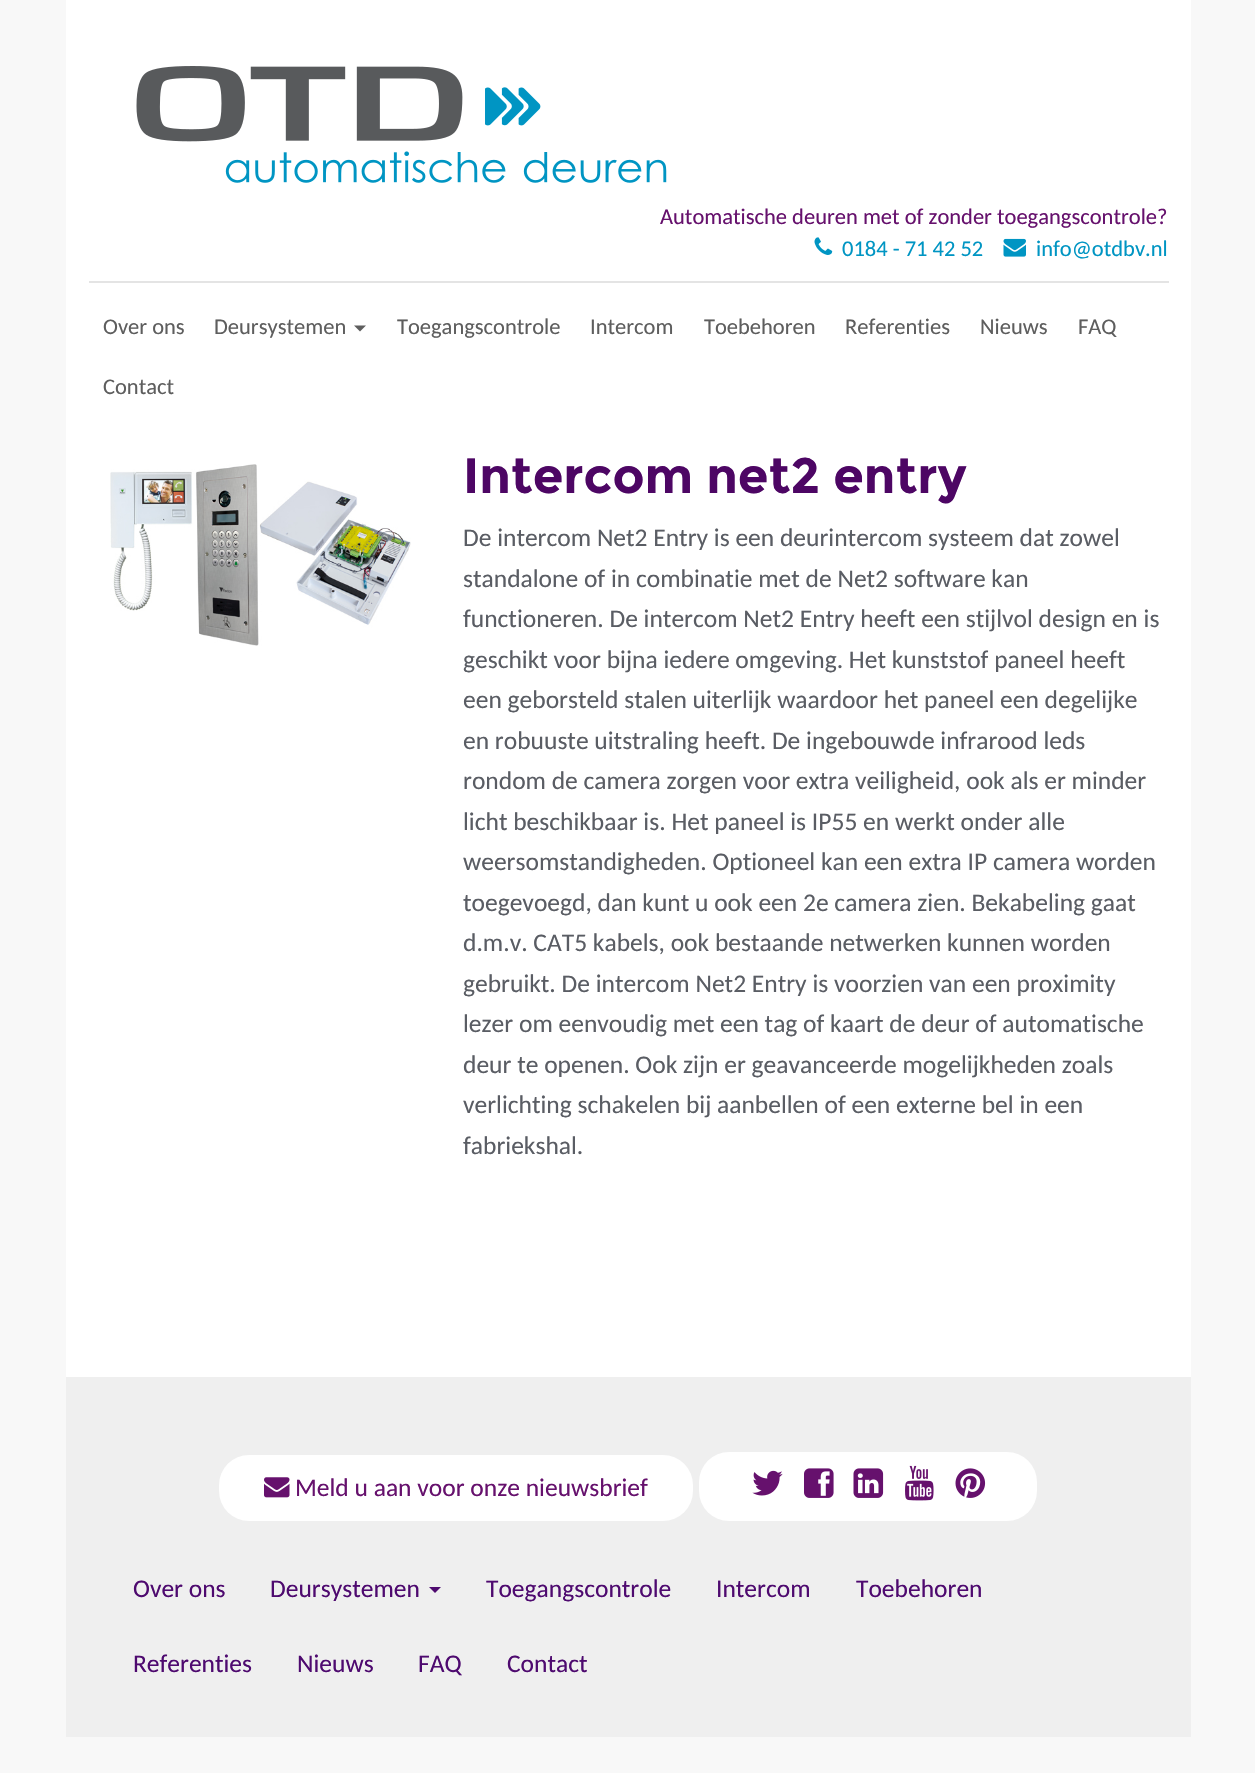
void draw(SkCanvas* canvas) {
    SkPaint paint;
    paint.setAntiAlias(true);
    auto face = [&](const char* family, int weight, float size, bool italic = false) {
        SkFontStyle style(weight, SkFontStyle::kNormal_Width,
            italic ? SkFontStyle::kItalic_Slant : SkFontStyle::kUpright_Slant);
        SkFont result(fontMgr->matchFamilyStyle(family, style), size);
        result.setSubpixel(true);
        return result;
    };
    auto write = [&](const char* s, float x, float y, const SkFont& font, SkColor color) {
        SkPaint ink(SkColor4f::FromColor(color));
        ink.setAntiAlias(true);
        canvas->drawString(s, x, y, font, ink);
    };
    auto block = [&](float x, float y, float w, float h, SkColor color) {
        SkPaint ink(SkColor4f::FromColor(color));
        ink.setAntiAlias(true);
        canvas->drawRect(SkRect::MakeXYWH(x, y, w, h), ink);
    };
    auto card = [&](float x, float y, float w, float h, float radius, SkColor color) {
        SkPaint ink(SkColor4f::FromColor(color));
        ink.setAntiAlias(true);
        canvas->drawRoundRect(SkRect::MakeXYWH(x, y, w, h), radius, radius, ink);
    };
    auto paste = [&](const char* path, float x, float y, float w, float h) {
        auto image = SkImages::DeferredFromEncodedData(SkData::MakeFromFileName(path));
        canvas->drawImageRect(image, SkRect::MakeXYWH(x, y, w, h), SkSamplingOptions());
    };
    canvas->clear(SkColorSetRGB(248, 248, 248));
    block(66, 0, 1125, 1377, SK_ColorWHITE);
    paste("pic1.png", 136, 66, 531, 117);
    block(89, 281, 1080, 2, SkColorSetRGB(228, 228, 228));
    auto kFont1 = face("Carlito", 400, 22.5f);
    write("Automatische deuren met of zonder toegangscontrole?", 660, 224, kFont1, SkColorSetRGB(102, 17, 109));
    paste("pic2.png", 814, 237, 19, 18);
    write("0184 - 71 42 52", 842, 256, kFont1, SkColorSetRGB(0, 149, 195));
    paste("pic3.png", 1003, 238, 23, 19);
    write("info@otdbv.nl", 1036, 256, kFont1, SkColorSetRGB(0, 149, 195));
    write("Over ons", 103, 334, kFont1, SkColorSetRGB(94, 94, 94));
    write("Deursystemen", 214, 334, kFont1, SkColorSetRGB(94, 94, 94));
    paint.setColor(SkColorSetRGB(94, 94, 94));
    canvas->drawPath(SkPathBuilder().moveTo(354, 325.5f).lineTo(366, 325.5f).lineTo(360, 331.5f).close().detach(), paint);
    write("Toegangscontrole", 397, 334, kFont1, SkColorSetRGB(94, 94, 94));
    write("Intercom", 590, 334, kFont1, SkColorSetRGB(94, 94, 94));
    write("Toebehoren", 704, 334, kFont1, SkColorSetRGB(94, 94, 94));
    write("Referenties", 845, 334, kFont1, SkColorSetRGB(94, 94, 94));
    write("Nieuws", 980, 334, kFont1, SkColorSetRGB(94, 94, 94));
    write("FAQ", 1078, 334, kFont1, SkColorSetRGB(94, 94, 94));
    write("Contact", 103, 394, kFont1, SkColorSetRGB(94, 94, 94));
    paste("pic4.png", 110, 464, 301, 182);
    auto kFont2 = face("Montserrat", 700, 49.5f);
    write("Intercom net2 entry", 463, 493, kFont2, SkColorSetRGB(77, 6, 100));
    auto kFont3 = face("Carlito", 400, 25.5f);
    write("De intercom Net2 Entry is een deurintercom systeem dat zowel", 463, 546, kFont3, SkColorSetRGB(90, 93, 100));
    write("standalone of in combinatie met de Net2 software kan", 463, 587, kFont3, SkColorSetRGB(90, 93, 100));
    write("functioneren. De intercom Net2 Entry heeft een stijlvol design en is", 463, 627, kFont3, SkColorSetRGB(90, 93, 100));
    write("geschikt voor bijna iedere omgeving. Het kunststof paneel heeft", 463, 668, kFont3, SkColorSetRGB(90, 93, 100));
    write("een geborsteld stalen uiterlijk waardoor het paneel een degelijke", 463, 708, kFont3, SkColorSetRGB(90, 93, 100));
    write("en robuuste uitstraling heeft. De ingebouwde infrarood leds", 463, 749, kFont3, SkColorSetRGB(90, 93, 100));
    write("rondom de camera zorgen voor extra veiligheid, ook als er minder", 463, 789, kFont3, SkColorSetRGB(90, 93, 100));
    write("licht beschikbaar is. Het paneel is IP55 en werkt onder alle", 463, 830, kFont3, SkColorSetRGB(90, 93, 100));
    write("weersomstandigheden. Optioneel kan een extra IP camera worden", 463, 870, kFont3, SkColorSetRGB(90, 93, 100));
    write("toegevoegd, dan kunt u ook een 2e camera zien. Bekabeling gaat", 463, 911, kFont3, SkColorSetRGB(90, 93, 100));
    write("d.m.v. CAT5 kabels, ook bestaande netwerken kunnen worden", 463, 951, kFont3, SkColorSetRGB(90, 93, 100));
    write("gebruikt. De intercom Net2 Entry is voorzien van een proximity", 463, 992, kFont3, SkColorSetRGB(90, 93, 100));
    write("lezer om eenvoudig met een tag of kaart de deur of automatische", 463, 1032, kFont3, SkColorSetRGB(90, 93, 100));
    write("deur te openen. Ook zijn er geavanceerde mogelijkheden zoals", 463, 1073, kFont3, SkColorSetRGB(90, 93, 100));
    write("verlichting schakelen bij aanbellen of een externe bel in een", 463, 1113, kFont3, SkColorSetRGB(90, 93, 100));
    write("fabriekshal.", 463, 1154, kFont3, SkColorSetRGB(90, 93, 100));
    block(66, 1377, 1125, 360, SkColorSetRGB(239, 239, 239));
    card(219, 1455, 474, 66, 30, SK_ColorWHITE);
    paste("pic5.png", 264, 1477, 26, 21);
    write("Meld u aan voor onze nieuwsbrief", 295, 1496, kFont3, SkColorSetRGB(102, 17, 109));
    card(699, 1452, 338, 69, 30, SK_ColorWHITE);
    paste("pic6.png", 752, 1470, 31, 26);
    paste("pic7.png", 804, 1468, 30, 30);
    paste("pic8.png", 853, 1468, 31, 30);
    paste("pic9.png", 905, 1465, 29, 36);
    paste("pic10.png", 955, 1468, 31, 30);
    write("Over ons", 133, 1597, kFont3, SkColorSetRGB(78, 10, 111));
    write("Deursystemen", 270, 1597, kFont3, SkColorSetRGB(78, 10, 111));
    paint.setColor(SkColorSetRGB(78, 10, 111));
    canvas->drawPath(SkPathBuilder().moveTo(429, 1587).lineTo(441, 1587).lineTo(435, 1593).close().detach(), paint);
    write("Toegangscontrole", 486, 1597, kFont3, SkColorSetRGB(78, 10, 111));
    write("Intercom", 716, 1597, kFont3, SkColorSetRGB(78, 10, 111));
    write("Toebehoren", 856, 1597, kFont3, SkColorSetRGB(78, 10, 111));
    write("Referenties", 133, 1672, kFont3, SkColorSetRGB(78, 10, 111));
    write("Nieuws", 297, 1672, kFont3, SkColorSetRGB(78, 10, 111));
    write("FAQ", 418, 1672, kFont3, SkColorSetRGB(78, 10, 111));
    write("Contact", 507, 1672, kFont3, SkColorSetRGB(78, 10, 111));
}
